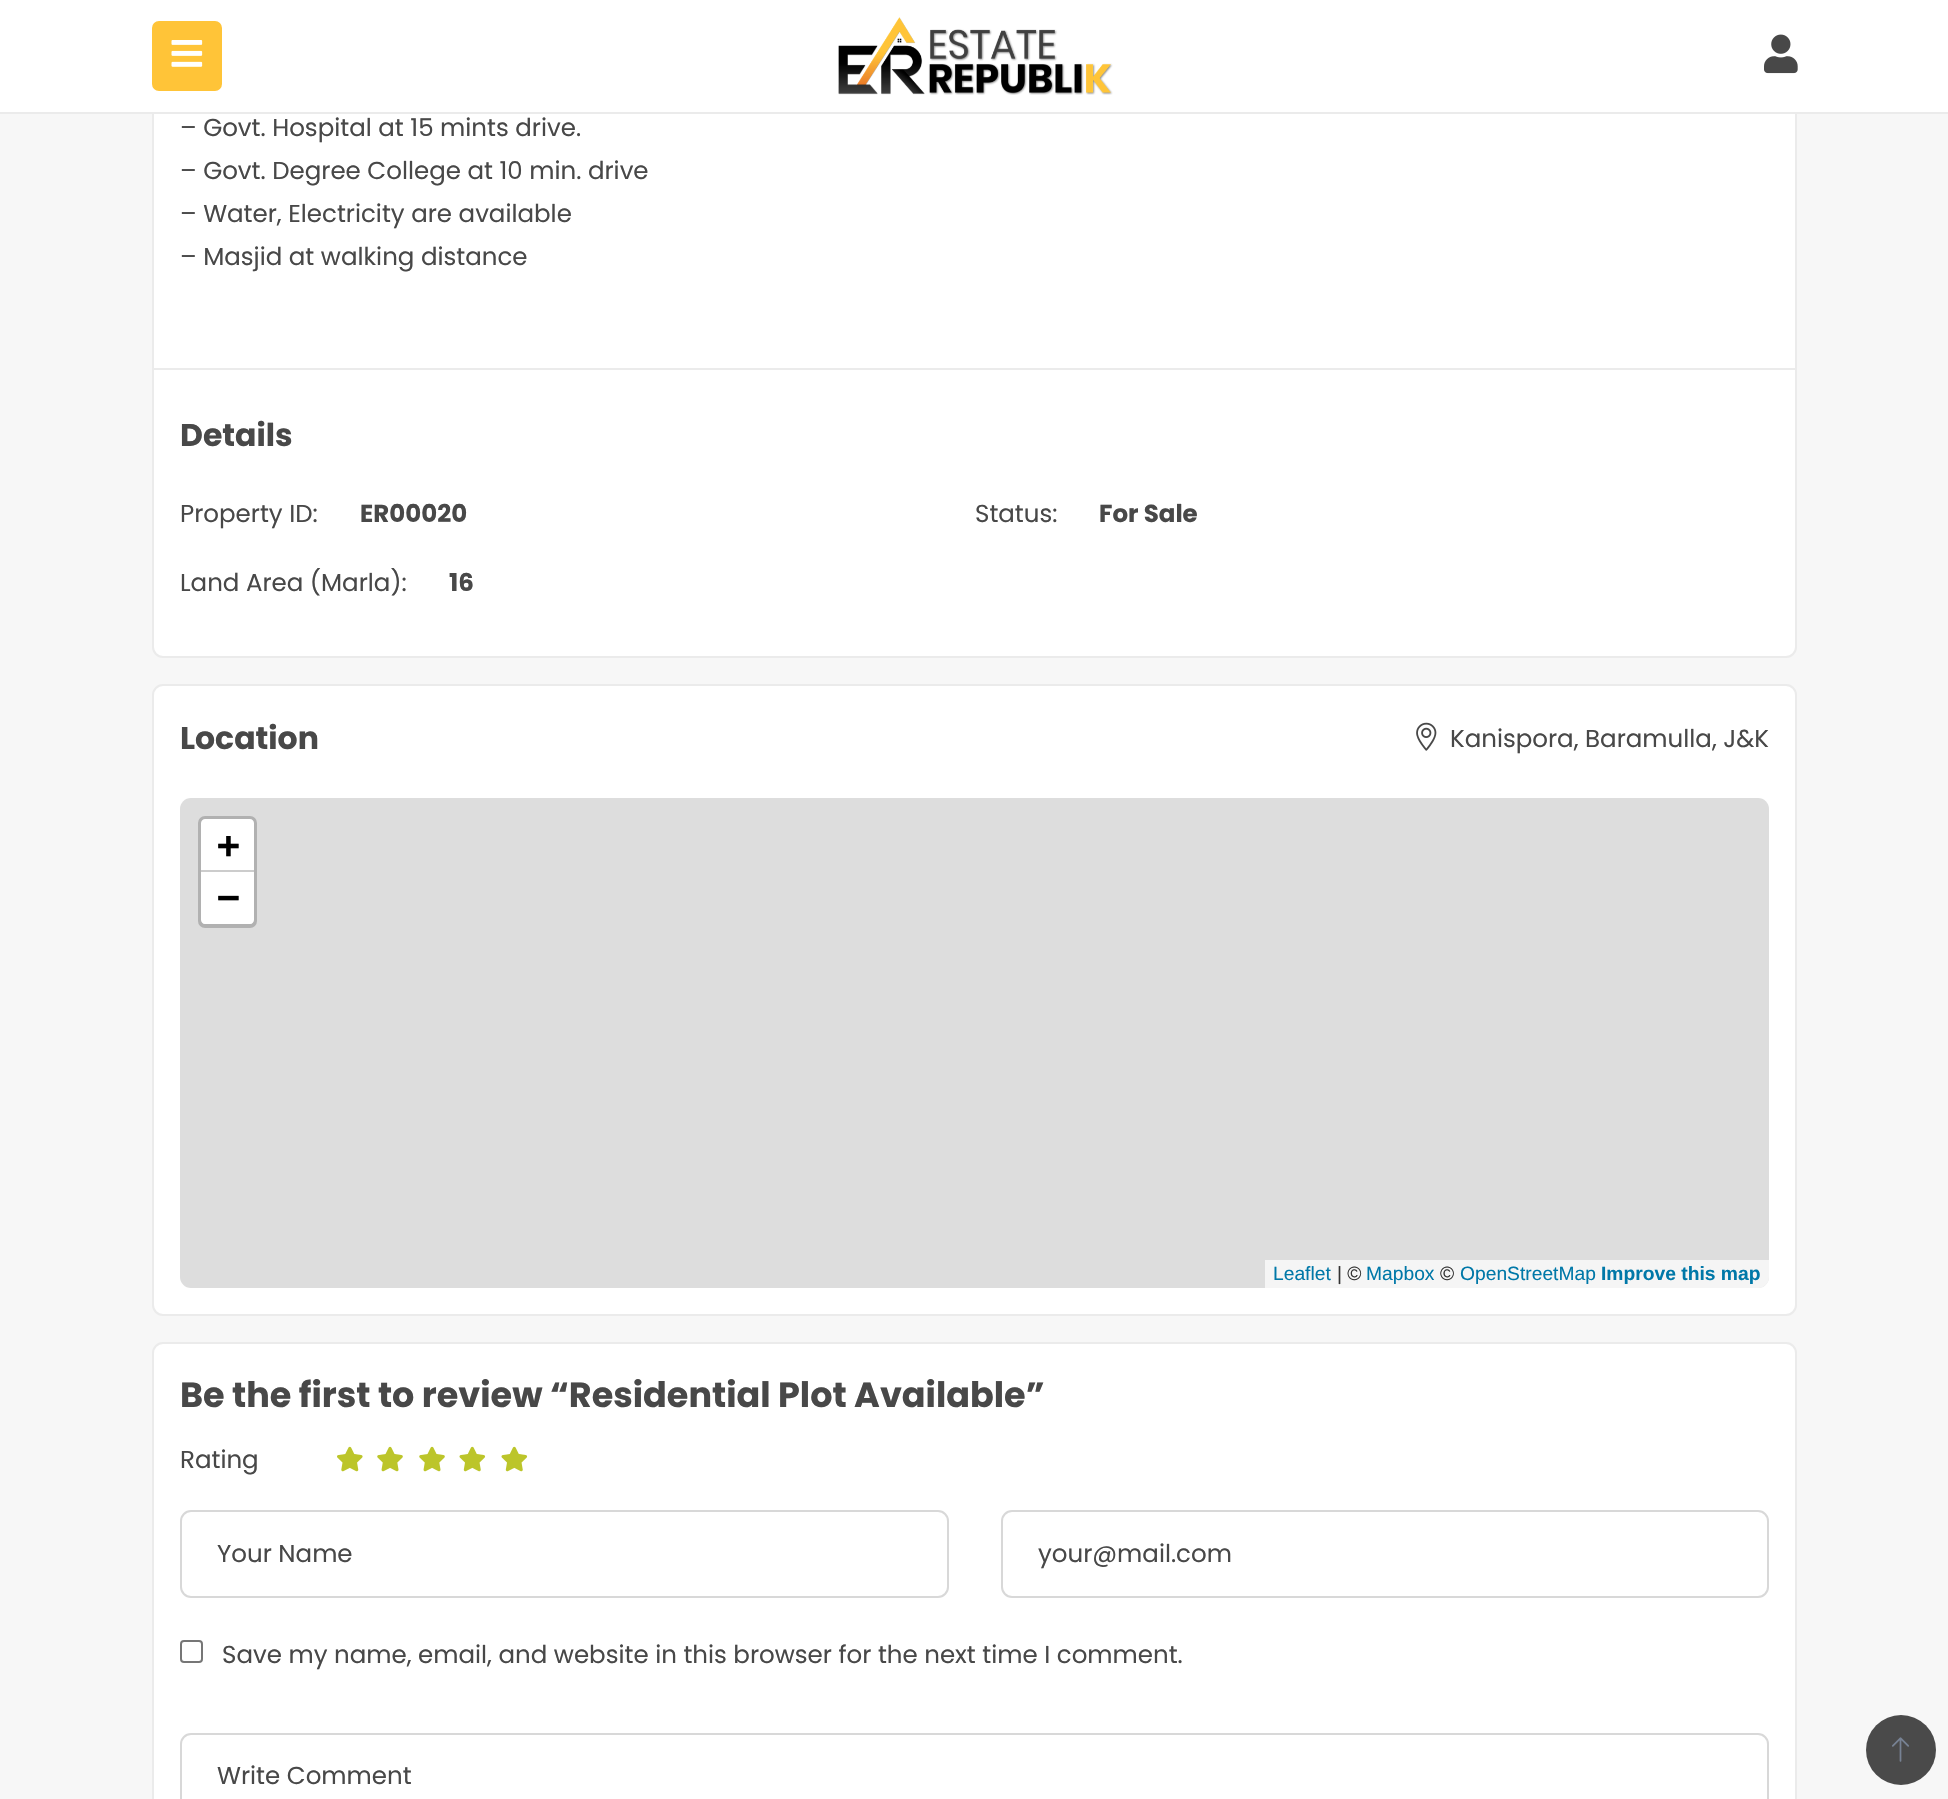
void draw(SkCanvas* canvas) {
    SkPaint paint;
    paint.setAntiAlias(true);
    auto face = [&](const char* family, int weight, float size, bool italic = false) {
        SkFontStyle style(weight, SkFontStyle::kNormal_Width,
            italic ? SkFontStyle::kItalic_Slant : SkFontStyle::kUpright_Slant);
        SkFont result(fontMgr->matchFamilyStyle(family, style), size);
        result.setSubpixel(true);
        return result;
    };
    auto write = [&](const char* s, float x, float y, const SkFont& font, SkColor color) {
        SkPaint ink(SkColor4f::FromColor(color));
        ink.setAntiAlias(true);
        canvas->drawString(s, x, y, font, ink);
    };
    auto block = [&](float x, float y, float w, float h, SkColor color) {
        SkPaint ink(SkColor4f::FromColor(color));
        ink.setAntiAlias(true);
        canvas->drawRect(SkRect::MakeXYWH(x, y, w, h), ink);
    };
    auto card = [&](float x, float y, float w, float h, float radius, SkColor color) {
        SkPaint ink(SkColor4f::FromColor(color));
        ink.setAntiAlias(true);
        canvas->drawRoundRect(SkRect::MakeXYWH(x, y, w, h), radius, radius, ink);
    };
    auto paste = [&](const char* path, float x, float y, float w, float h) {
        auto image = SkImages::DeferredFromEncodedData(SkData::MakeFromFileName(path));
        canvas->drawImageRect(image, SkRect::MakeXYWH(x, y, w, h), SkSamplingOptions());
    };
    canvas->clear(SkColorSetRGB(247, 247, 247));
    paint.setColor(SK_ColorWHITE);
    canvas->drawRoundRect(SkRect::MakeXYWH(153, -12, 1643, 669), 10, 10, paint);
    paint.setStyle(SkPaint::kStroke_Style);
    paint.setStrokeWidth(2);
    paint.setColor(SkColorSetRGB(235, 235, 235));
    canvas->drawRoundRect(SkRect::MakeXYWH(153, -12, 1643, 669), 10, 10, paint);
    block(0, 0, 1948, 112, SK_ColorWHITE);
    block(0, 112, 1948, 2, SkColorSetRGB(235, 235, 235));
    paint.setStyle(SkPaint::kFill_Style);
    paint.setColor(SkColorSetRGB(255, 196, 56));
    canvas->drawRoundRect(SkRect::MakeXYWH(153, 22, 68, 68), 6, 6, paint);
    paint.setStyle(SkPaint::kStroke_Style);
    canvas->drawRoundRect(SkRect::MakeXYWH(153, 22, 68, 68), 6, 6, paint);
    paste("pic1.png", 171, 40, 32, 27);
    paste("pic2.png", 838, 17, 275, 78);
    paste("pic3.png", 1764, 34, 34, 40);
    auto kFont1 = face("Poppins", 400, 24.5f);
    write("– Govt. Hospital at 15 mints drive.", 180, 136, kFont1, SkColorSetRGB(72, 72, 72));
    write("– Govt. Degree College at 10 min. drive", 180, 179, kFont1, SkColorSetRGB(72, 72, 72));
    write("– Water, Electricity are available", 180, 222, kFont1, SkColorSetRGB(72, 72, 72));
    write("– Masjid at walking distance", 180, 265, kFont1, SkColorSetRGB(72, 72, 72));
    block(154, 368, 1642, 2, SkColorSetRGB(235, 235, 235));
    auto kFont2 = face("Poppins", 700, 31.5f);
    write("Details", 180, 446, kFont2, SkColorSetRGB(72, 72, 72));
    write("Property ID:", 180, 522, kFont1, SkColorSetRGB(72, 72, 72));
    auto kFont3 = face("Poppins", 700, 24.5f);
    write("ER00020", 360, 522, kFont3, SkColorSetRGB(72, 72, 72));
    write("Status:", 975, 522, kFont1, SkColorSetRGB(72, 72, 72));
    write("For Sale", 1099, 522, kFont3, SkColorSetRGB(72, 72, 72));
    write("Land Area (Marla):", 180, 591, kFont1, SkColorSetRGB(72, 72, 72));
    write("16", 449, 591, kFont3, SkColorSetRGB(72, 72, 72));
    paint.setStyle(SkPaint::kFill_Style);
    paint.setColor(SK_ColorWHITE);
    canvas->drawRoundRect(SkRect::MakeXYWH(153, 685, 1643, 630), 10, 10, paint);
    paint.setStyle(SkPaint::kStroke_Style);
    paint.setColor(SkColorSetRGB(235, 235, 235));
    canvas->drawRoundRect(SkRect::MakeXYWH(153, 685, 1643, 630), 10, 10, paint);
    write("Location", 180, 749, kFont2, SkColorSetRGB(72, 72, 72));
    paste("pic4.png", 1416, 722, 21, 29);
    write("Kanispora, Baramulla, J&K", 1450, 747, kFont1, SkColorSetRGB(72, 72, 72));
    card(180, 798, 1589, 490, 11, SkColorSetRGB(221, 221, 221));
    paint.setStrokeWidth(4);
    paint.setColor(SkColorSetRGB(177, 177, 177));
    canvas->drawRoundRect(SkRect::MakeXYWH(200, 818, 55, 108), 5, 5, paint);
    paint.setStyle(SkPaint::kFill_Style);
    paint.setColor(SK_ColorWHITE);
    canvas->drawPath(SkPathBuilder().moveTo(205, 819).lineTo(250, 819).cubicTo(252, 819, 254, 821, 254, 823).lineTo(254, 872).lineTo(201, 872).lineTo(201, 823).cubicTo(201, 821, 203, 819, 205, 819).close().detach(), paint);
    block(201, 870, 53, 2, SkColorSetRGB(204, 204, 204));
    auto kFont4 = face("DejaVu Sans Mono", 700, 38);
    write("+", 217, 858, kFont4, SK_ColorBLACK);
    canvas->drawPath(SkPathBuilder().moveTo(201, 872).lineTo(254, 872).lineTo(254, 920).cubicTo(254, 922, 252, 924, 250, 924).lineTo(205, 924).cubicTo(203, 924, 201, 922, 201, 920).close().detach(), paint);
    write("−", 217, 910, kFont4, SK_ColorBLACK);
    paint.setColor(SkColorSetARGB(179, 255, 255, 255));
    canvas->drawPath(SkPathBuilder().moveTo(1265, 1260).lineTo(1769, 1260).lineTo(1769, 1277).cubicTo(1769, 1283, 1764, 1288, 1758, 1288).lineTo(1265, 1288).close().detach(), paint);
    auto kFont5 = face("Liberation Sans", 400, 19.25f);
    write("Leaflet", 1273, 1280, kFont5, SkColorSetRGB(0, 120, 168));
    write("| ©", 1337, 1280, kFont5, SkColorSetRGB(51, 51, 51));
    write("Mapbox", 1366, 1280, kFont5, SkColorSetRGB(0, 120, 168));
    write("©", 1440, 1280, kFont5, SkColorSetRGB(51, 51, 51));
    write("OpenStreetMap", 1460, 1280, kFont5, SkColorSetRGB(0, 120, 168));
    auto kFont6 = face("Liberation Sans", 700, 19.25f);
    write("Improve this map", 1601, 1280, kFont6, SkColorSetRGB(0, 120, 168));
    paint.setColor(SK_ColorWHITE);
    canvas->drawRoundRect(SkRect::MakeXYWH(153, 1343, 1643, 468), 10, 10, paint);
    paint.setStyle(SkPaint::kStroke_Style);
    paint.setStrokeWidth(2);
    paint.setColor(SkColorSetRGB(235, 235, 235));
    canvas->drawRoundRect(SkRect::MakeXYWH(153, 1343, 1643, 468), 10, 10, paint);
    auto kFont7 = face("Poppins", 700, 35);
    write("Be the first to review “Residential Plot Available”", 180, 1407, kFont7, SkColorSetRGB(72, 72, 72));
    write("Rating", 180, 1468, kFont1, SkColorSetRGB(72, 72, 72));
    paste("pic5.png", 337, 1446, 26, 26);
    paste("pic6.png", 377, 1446, 26, 26);
    paste("pic6.png", 419, 1446, 26, 26);
    paste("pic7.png", 459, 1446, 27, 26);
    paste("pic7.png", 501, 1446, 27, 26);
    paint.setColor(SkColorSetRGB(216, 216, 216));
    canvas->drawRoundRect(SkRect::MakeXYWH(181, 1511, 767, 86), 10, 10, paint);
    write("Your Name", 217, 1562, kFont1, SkColorSetRGB(72, 72, 72));
    canvas->drawRoundRect(SkRect::MakeXYWH(1002, 1511, 766, 86), 10, 10, paint);
    write("your@mail.com", 1038, 1562, kFont1, SkColorSetRGB(72, 72, 72));
    paint.setColor(SkColorSetRGB(118, 118, 118));
    canvas->drawRoundRect(SkRect::MakeXYWH(181, 1641, 21, 21), 3, 3, paint);
    write("Save my name, email, and website in this browser for the next time I comment.", 222, 1663, kFont1, SkColorSetRGB(72, 72, 72));
    paint.setColor(SkColorSetRGB(216, 216, 216));
    canvas->drawRoundRect(SkRect::MakeXYWH(181, 1734, 1587, 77), 10, 10, paint);
    write("Write Comment", 217, 1784, kFont1, SkColorSetRGB(72, 72, 72));
    paint.setStyle(SkPaint::kFill_Style);
    paint.setColor(SkColorSetRGB(74, 74, 74));
    canvas->drawCircle(1901, 1750, 35, paint);
    paste("pic8.png", 1892, 1737, 17, 25);
}
